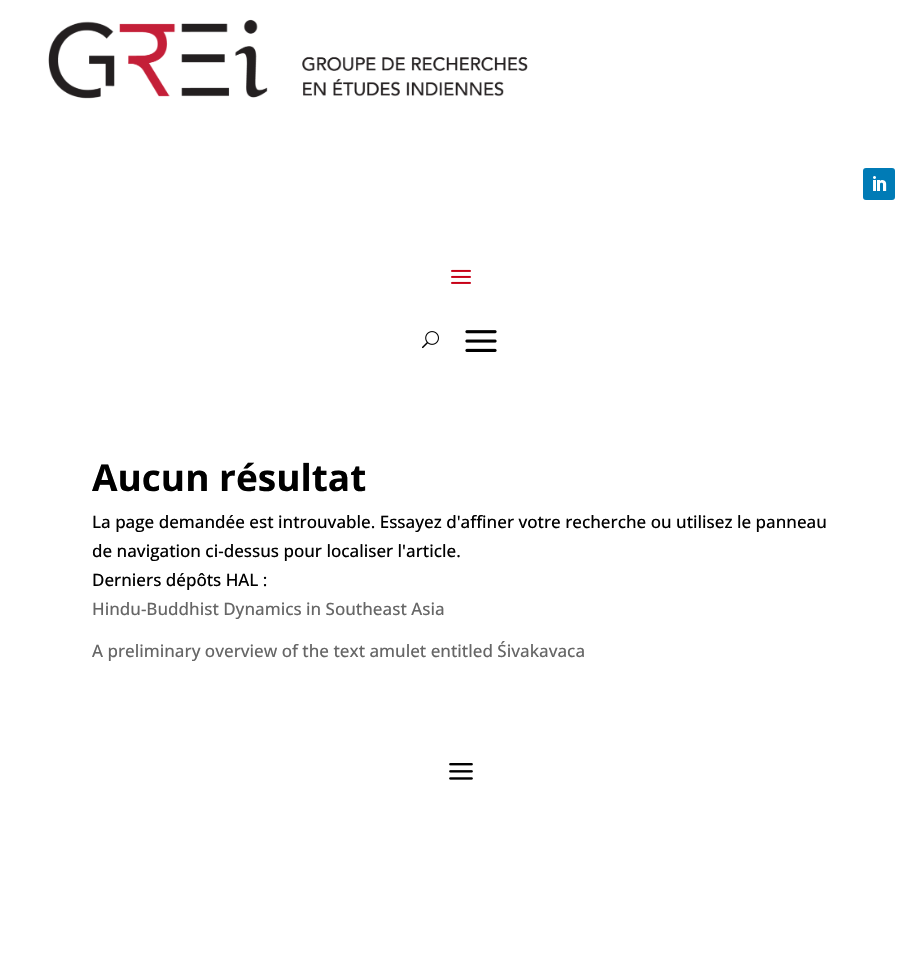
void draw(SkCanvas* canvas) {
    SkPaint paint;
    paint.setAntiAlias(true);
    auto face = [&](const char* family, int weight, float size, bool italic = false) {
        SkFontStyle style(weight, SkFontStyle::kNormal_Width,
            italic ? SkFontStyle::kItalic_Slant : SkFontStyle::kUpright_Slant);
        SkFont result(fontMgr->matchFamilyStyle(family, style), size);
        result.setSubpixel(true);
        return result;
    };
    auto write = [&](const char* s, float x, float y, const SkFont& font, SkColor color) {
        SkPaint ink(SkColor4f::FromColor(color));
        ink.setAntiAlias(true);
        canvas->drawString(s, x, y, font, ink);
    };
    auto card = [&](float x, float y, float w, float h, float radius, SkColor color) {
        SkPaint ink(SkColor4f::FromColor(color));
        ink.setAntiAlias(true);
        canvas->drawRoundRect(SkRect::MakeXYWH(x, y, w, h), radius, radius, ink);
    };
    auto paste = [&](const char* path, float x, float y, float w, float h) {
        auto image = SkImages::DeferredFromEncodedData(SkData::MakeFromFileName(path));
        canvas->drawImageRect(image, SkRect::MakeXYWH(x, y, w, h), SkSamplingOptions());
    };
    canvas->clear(SK_ColorWHITE);
    paste("pic1.png", 48, 19, 480, 80);
    card(863, 168, 32, 32, 3, SkColorSetRGB(0, 123, 182));
    paste("pic2.png", 873, 176, 14, 15);
    paste("pic3.png", 451, 269, 20, 15);
    paste("pic4.png", 422, 331, 17, 18);
    paste("pic5.png", 465, 330, 32, 22);
    auto kFont1 = face("Open Sans", 700, 37);
    write("Aucun résultat", 92, 491, kFont1, SK_ColorBLACK);
    auto kFont2 = face("Open Sans", 500, 17);
    write("La page demandée est introuvable. Essayez d'affiner votre recherche ou utilisez le panneau", 92, 528, kFont2, SK_ColorBLACK);
    write("de navigation ci-dessus pour localiser l'article.", 92, 557, kFont2, SK_ColorBLACK);
    write("Derniers dépôts HAL :", 92, 586, kFont2, SK_ColorBLACK);
    write("Hindu-Buddhist Dynamics in Southeast Asia", 92, 615, kFont2, SkColorSetRGB(102, 102, 102));
    write("A preliminary overview of the text amulet entitled Śivakavaca", 92, 657, kFont2, SkColorSetRGB(102, 102, 102));
    paste("pic6.png", 449, 763, 24, 17);
}
